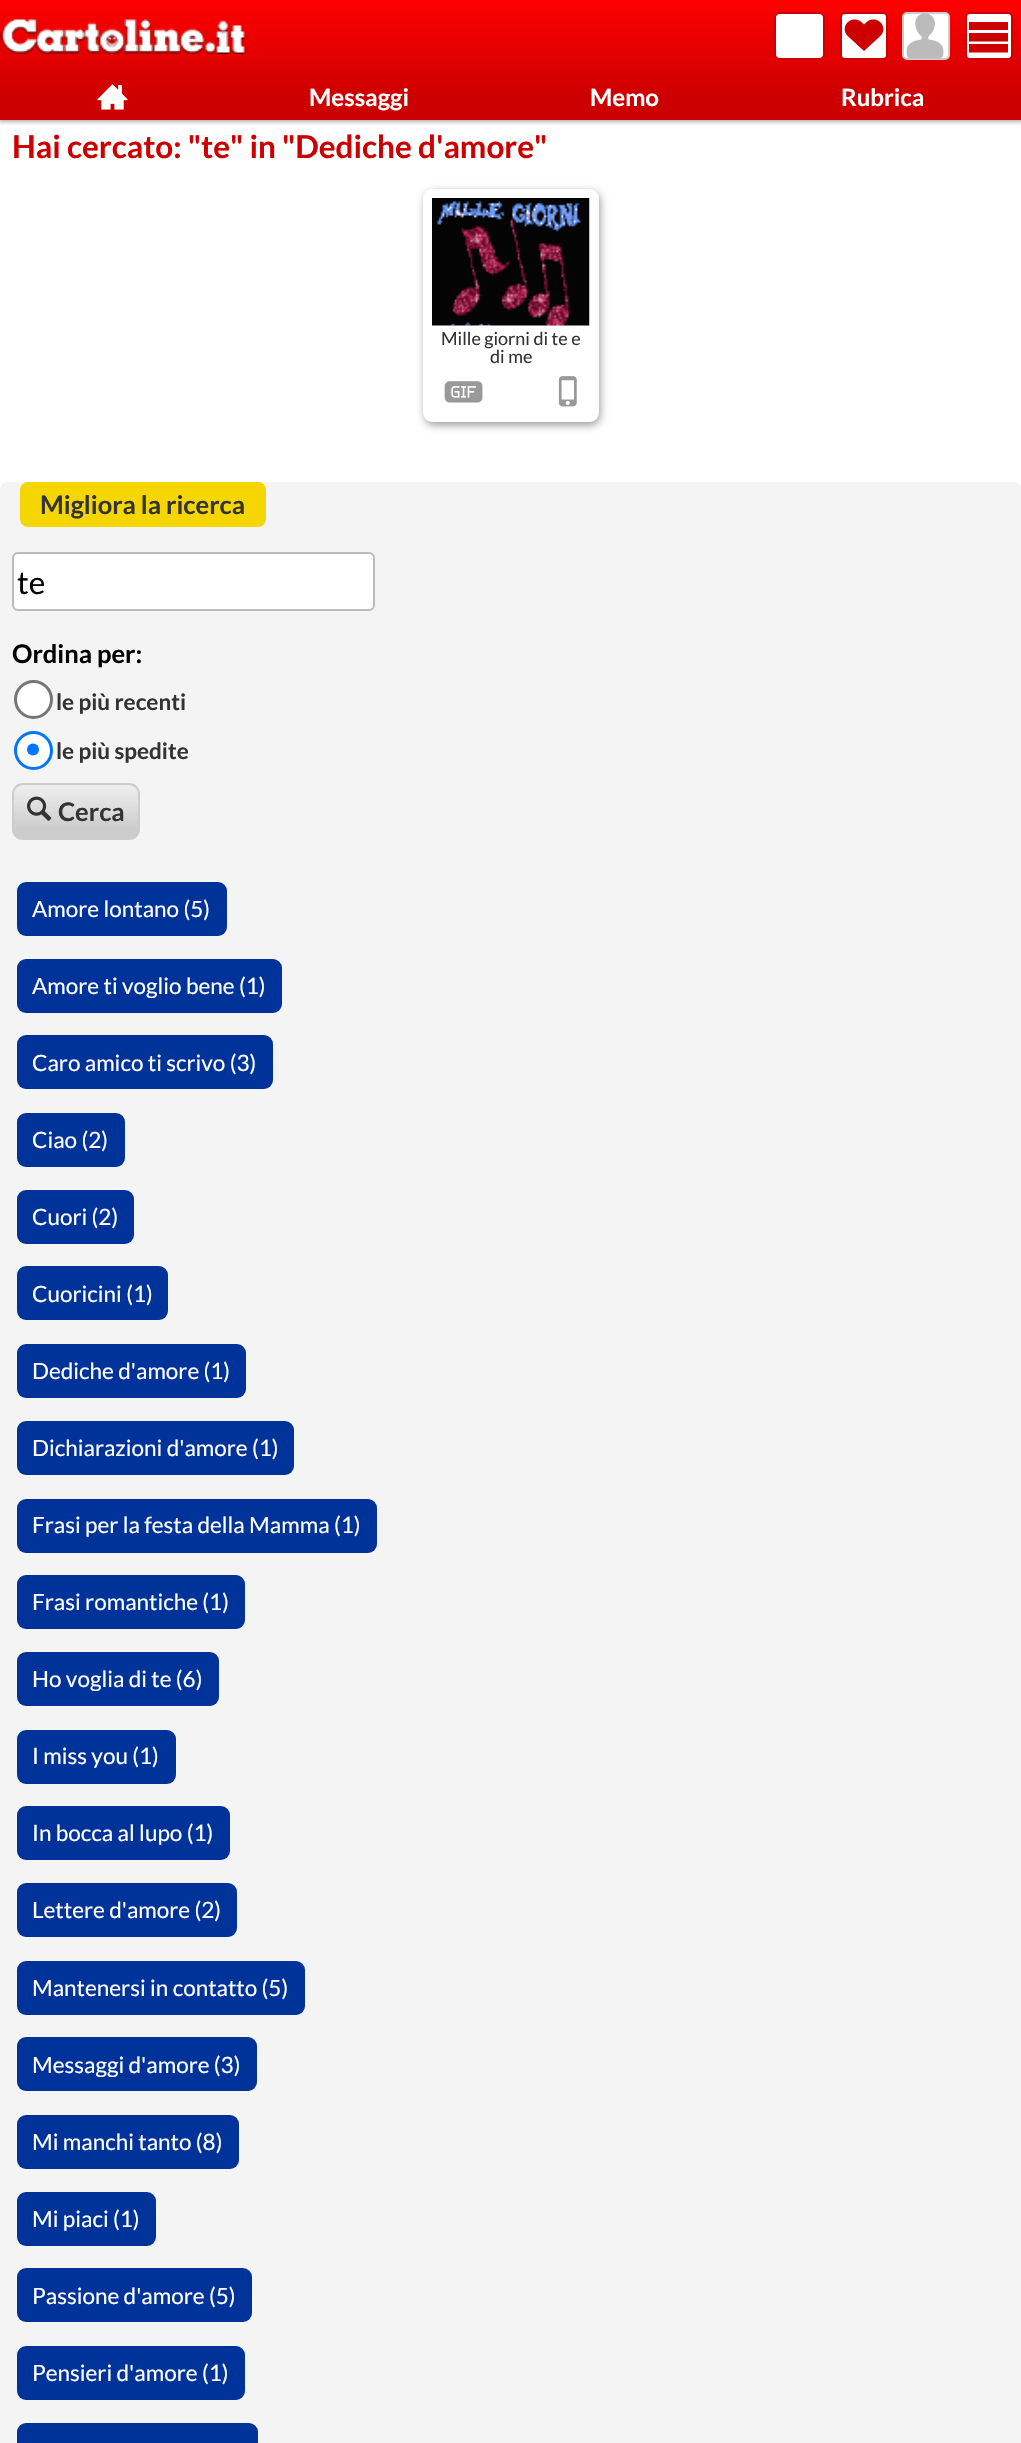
void draw(SkCanvas* canvas) {
    SkPaint paint;
    paint.setAntiAlias(true);
    auto face = [&](const char* family, int weight, float size, bool italic = false) {
        SkFontStyle style(weight, SkFontStyle::kNormal_Width,
            italic ? SkFontStyle::kItalic_Slant : SkFontStyle::kUpright_Slant);
        SkFont result(fontMgr->matchFamilyStyle(family, style), size);
        result.setSubpixel(true);
        return result;
    };
    auto write = [&](const char* s, float x, float y, const SkFont& font, SkColor color) {
        SkPaint ink(SkColor4f::FromColor(color));
        ink.setAntiAlias(true);
        canvas->drawString(s, x, y, font, ink);
    };
    auto card = [&](float x, float y, float w, float h, float radius, SkColor color) {
        SkPaint ink(SkColor4f::FromColor(color));
        ink.setAntiAlias(true);
        canvas->drawRoundRect(SkRect::MakeXYWH(x, y, w, h), radius, radius, ink);
    };
    auto paste = [&](const char* path, float x, float y, float w, float h) {
        auto image = SkImages::DeferredFromEncodedData(SkData::MakeFromFileName(path));
        canvas->drawImageRect(image, SkRect::MakeXYWH(x, y, w, h), SkSamplingOptions());
    };
    canvas->clear(SK_ColorWHITE);
    paint.setColor(SkColorSetRGB(176, 176, 176));
    paint.setMaskFilter(SkMaskFilter::MakeBlur(kNormal_SkBlurStyle, 2));
    canvas->drawRect(SkRect::MakeXYWH(-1, -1, 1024, 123), paint);
    paint.setMaskFilter(nullptr);
    {
        const SkColor colors[] = {SkColorSetRGB(255, 0, 0), SkColorSetRGB(204, 0, 0)};
        const float stops[] = {0, 0.82f};
        const SkPoint ends[] = {{511, 0}, {511, 120}};
        paint.setShader(SkGradientShader::MakeLinear(ends, colors, stops, 2, SkTileMode::kClamp));
        paint.setAlpha(255);
    }
    canvas->drawRect(SkRect::MakeXYWH(0, 0, 1021, 120), paint);
    paste("pic1.png", 0, 19, 246, 35);
    paint.setShader(nullptr);
    paint.setColor(SK_ColorWHITE);
    canvas->drawRoundRect(SkRect::MakeXYWH(775, 13, 49, 46), 5, 5, paint);
    paint.setStyle(SkPaint::kStroke_Style);
    paint.setStrokeWidth(2);
    paint.setColor(SkColorSetRGB(204, 0, 0));
    canvas->drawRoundRect(SkRect::MakeXYWH(775, 13, 49, 46), 5, 5, paint);
    paint.setStyle(SkPaint::kFill_Style);
    paint.setColor(SK_ColorWHITE);
    canvas->drawRoundRect(SkRect::MakeXYWH(841, 13, 46, 46), 4, 4, paint);
    paint.setStyle(SkPaint::kStroke_Style);
    paint.setColor(SkColorSetRGB(204, 0, 0));
    canvas->drawRoundRect(SkRect::MakeXYWH(841, 13, 46, 46), 4, 4, paint);
    paste("pic2.png", 844, 19, 40, 32);
    paint.setStyle(SkPaint::kFill_Style);
    paint.setColor(SK_ColorWHITE);
    canvas->drawRoundRect(SkRect::MakeXYWH(903, 13, 46, 46), 4, 4, paint);
    paint.setStyle(SkPaint::kStroke_Style);
    paint.setColor(SkColorSetRGB(204, 204, 204));
    canvas->drawRoundRect(SkRect::MakeXYWH(903, 13, 46, 46), 4, 4, paint);
    paste("pic3.png", 906, 13, 38, 46);
    paint.setStyle(SkPaint::kFill_Style);
    paint.setColor(SK_ColorWHITE);
    canvas->drawRoundRect(SkRect::MakeXYWH(966, 13, 46, 46), 4, 4, paint);
    paint.setStyle(SkPaint::kStroke_Style);
    paint.setColor(SkColorSetRGB(204, 0, 0));
    canvas->drawRoundRect(SkRect::MakeXYWH(966, 13, 46, 46), 4, 4, paint);
    paint.setStyle(SkPaint::kFill_Style);
    canvas->drawPath(SkPathBuilder().moveTo(969, 22).lineTo(1008, 22).lineTo(1008, 30).lineTo(969, 30).close().moveTo(969, 33).lineTo(1008, 33).lineTo(1008, 41.5f).lineTo(969, 41.5f).close().moveTo(969, 44).lineTo(1008, 44).lineTo(1008, 52.5f).lineTo(969, 52.5f).close().detach(), paint);
    paste("pic4.png", 97, 84, 31, 26);
    auto kFont1 = face("Lato", 700, 24);
    write("Messaggi", 309, 106, kFont1, SK_ColorWHITE);
    write("Memo", 590, 106, kFont1, SK_ColorWHITE);
    write("Rubrica", 841, 106, kFont1, SK_ColorWHITE);
    auto kFont2 = face("Lato", 700, 31.5f);
    write("Hai cercato: \"te\" in \"Dediche d'amore\"", 12, 158, kFont2, SkColorSetRGB(204, 0, 0));
    paint.setColor(SkColorSetRGB(153, 153, 153));
    paint.setMaskFilter(SkMaskFilter::MakeBlur(kNormal_SkBlurStyle, 4));
    canvas->drawRoundRect(SkRect::MakeXYWH(425, 192, 175, 233), 9, 9, paint);
    paint.setMaskFilter(nullptr);
    paint.setColor(SK_ColorWHITE);
    canvas->drawRoundRect(SkRect::MakeXYWH(427.5f, 193.5f, 167, 224), 4.5f, 4.5f, paint);
    paint.setStyle(SkPaint::kStroke_Style);
    paint.setStrokeWidth(9);
    canvas->drawRoundRect(SkRect::MakeXYWH(427.5f, 193.5f, 167, 224), 4.5f, 4.5f, paint);
    paste("pic5.png", 432, 198, 158, 128);
    auto kFont3 = face("Lato", 400, 18);
    write("Mille giorni di te e", 441, 345, kFont3, SkColorSetRGB(51, 51, 51));
    write("di me", 490, 363, kFont3, SkColorSetRGB(51, 51, 51));
    paste("pic6.png", 444, 381, 39, 22);
    paste("pic7.png", 558, 376, 19, 31);
    card(0, 482, 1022, 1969, 8, SkColorSetRGB(244, 244, 244));
    card(20, 482, 246, 45, 8, SkColorSetRGB(245, 214, 1));
    auto kFont4 = face("Lato", 700, 25.5f);
    write("Migliora la ricerca", 40, 514, kFont4, SkColorSetRGB(51, 51, 51));
    paint.setStyle(SkPaint::kFill_Style);
    canvas->drawRoundRect(SkRect::MakeXYWH(13, 553, 361, 57), 5, 5, paint);
    paint.setStyle(SkPaint::kStroke_Style);
    paint.setStrokeWidth(2);
    paint.setColor(SkColorSetRGB(187, 187, 187));
    canvas->drawRoundRect(SkRect::MakeXYWH(13, 553, 361, 57), 5, 5, paint);
    auto kFont5 = face("Lato", 400, 31.5f);
    write("te", 17, 594, kFont5, SK_ColorBLACK);
    write("Ordina per:", 12, 663, kFont4, SK_ColorBLACK);
    paint.setStyle(SkPaint::kFill_Style);
    paint.setColor(SK_ColorWHITE);
    canvas->drawCircle(33.5f, 699.5f, 18, paint);
    paint.setStyle(SkPaint::kStroke_Style);
    paint.setStrokeWidth(3);
    paint.setColor(SkColorSetRGB(118, 118, 118));
    canvas->drawCircle(33.5f, 699.5f, 18, paint);
    auto kFont6 = face("Lato", 700, 22.5f);
    write("le più recenti", 56, 710, kFont6, SkColorSetRGB(51, 51, 51));
    paint.setStyle(SkPaint::kFill_Style);
    paint.setColor(SK_ColorWHITE);
    canvas->drawCircle(33.5f, 750.5f, 18, paint);
    paint.setStyle(SkPaint::kStroke_Style);
    paint.setColor(SkColorSetRGB(0, 117, 255));
    canvas->drawCircle(33.5f, 750.5f, 18, paint);
    paint.setStyle(SkPaint::kFill_Style);
    canvas->drawCircle(33, 749.5f, 6, paint);
    write("le più spedite", 56, 759, kFont6, SkColorSetRGB(51, 51, 51));
    canvas->save();
    canvas->clipPath(SkPathBuilder().moveTo(23, 783).lineTo(129, 783).cubicTo(135, 783, 140, 788, 140, 794).lineTo(140, 829).cubicTo(140, 835, 135, 840, 129, 840).lineTo(23, 840).cubicTo(17, 840, 12, 835, 12, 829).lineTo(12, 794).cubicTo(12, 788, 17, 783, 23, 783).close().detach(), true);
    {
        const SkColor colors[] = {SkColorSetRGB(239, 239, 239), SkColorSetRGB(204, 204, 204)};
        const float stops[] = {0, 0.82f};
        const SkPoint ends[] = {{76, 785}, {76, 839}};
        paint.setShader(SkGradientShader::MakeLinear(ends, colors, stops, 2, SkTileMode::kClamp));
        paint.setAlpha(255);
    }
    canvas->drawRect(SkRect::MakeXYWH(12, 785, 128, 54), paint);
    canvas->restore();
    paint.setStyle(SkPaint::kStroke_Style);
    paint.setStrokeWidth(2);
    paint.setShader(nullptr);
    paint.setColor(SkColorSetRGB(204, 204, 204));
    canvas->drawRoundRect(SkRect::MakeXYWH(13, 784, 126, 55), 10, 10, paint);
    paste("pic8.png", 27, 796, 25, 25);
    write("Cerca", 58, 821, kFont4, SkColorSetRGB(51, 51, 51));
    card(17, 882, 210, 54, 9, SkColorSetRGB(0, 51, 153));
    auto kFont7 = face("Lato", 400, 22.5f);
    write("Amore lontano (5)", 32, 917, kFont7, SK_ColorWHITE);
    card(17, 959, 265, 54, 9, SkColorSetRGB(0, 51, 153));
    write("Amore ti voglio bene (1)", 32, 994, kFont7, SK_ColorWHITE);
    card(17, 1035, 256, 54, 9, SkColorSetRGB(0, 51, 153));
    write("Caro amico ti scrivo (3)", 32, 1071, kFont7, SK_ColorWHITE);
    card(17, 1113, 108, 54, 9, SkColorSetRGB(0, 51, 153));
    write("Ciao (2)", 32, 1148, kFont7, SK_ColorWHITE);
    card(17, 1190, 117, 54, 9, SkColorSetRGB(0, 51, 153));
    write("Cuori (2)", 32, 1225, kFont7, SK_ColorWHITE);
    card(17, 1266, 151, 54, 9, SkColorSetRGB(0, 51, 153));
    write("Cuoricini (1)", 32, 1302, kFont7, SK_ColorWHITE);
    card(17, 1344, 229, 54, 9, SkColorSetRGB(0, 51, 153));
    write("Dediche d'amore (1)", 32, 1379, kFont7, SK_ColorWHITE);
    card(17, 1421, 277, 54, 9, SkColorSetRGB(0, 51, 153));
    write("Dichiarazioni d'amore (1)", 32, 1456, kFont7, SK_ColorWHITE);
    card(17, 1499, 360, 54, 9, SkColorSetRGB(0, 51, 153));
    write("Frasi per la festa della Mamma (1)", 32, 1533, kFont7, SK_ColorWHITE);
    card(17, 1575, 228, 54, 9, SkColorSetRGB(0, 51, 153));
    write("Frasi romantiche (1)", 32, 1610, kFont7, SK_ColorWHITE);
    card(17, 1652, 202, 54, 9, SkColorSetRGB(0, 51, 153));
    write("Ho voglia di te (6)", 32, 1687, kFont7, SK_ColorWHITE);
    card(17, 1730, 159, 54, 9, SkColorSetRGB(0, 51, 153));
    write("I miss you (1)", 32, 1764, kFont7, SK_ColorWHITE);
    card(17, 1806, 213, 54, 9, SkColorSetRGB(0, 51, 153));
    write("In bocca al lupo (1)", 32, 1841, kFont7, SK_ColorWHITE);
    card(17, 1883, 220, 54, 9, SkColorSetRGB(0, 51, 153));
    write("Lettere d'amore (2)", 32, 1918, kFont7, SK_ColorWHITE);
    card(17, 1961, 288, 54, 9, SkColorSetRGB(0, 51, 153));
    write("Mantenersi in contatto (5)", 32, 1996, kFont7, SK_ColorWHITE);
    card(17, 2037, 240, 54, 9, SkColorSetRGB(0, 51, 153));
    write("Messaggi d'amore (3)", 32, 2073, kFont7, SK_ColorWHITE);
    card(17, 2115, 222, 54, 9, SkColorSetRGB(0, 51, 153));
    write("Mi manchi tanto (8)", 32, 2150, kFont7, SK_ColorWHITE);
    card(17, 2192, 139, 54, 9, SkColorSetRGB(0, 51, 153));
    write("Mi piaci (1)", 32, 2227, kFont7, SK_ColorWHITE);
    card(17, 2268, 235, 54, 9, SkColorSetRGB(0, 51, 153));
    write("Passione d'amore (5)", 32, 2304, kFont7, SK_ColorWHITE);
    card(17, 2346, 228, 54, 9, SkColorSetRGB(0, 51, 153));
    write("Pensieri d'amore (1)", 32, 2381, kFont7, SK_ColorWHITE);
    card(17, 2423, 241, 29, 9, SkColorSetRGB(0, 51, 153));
}
